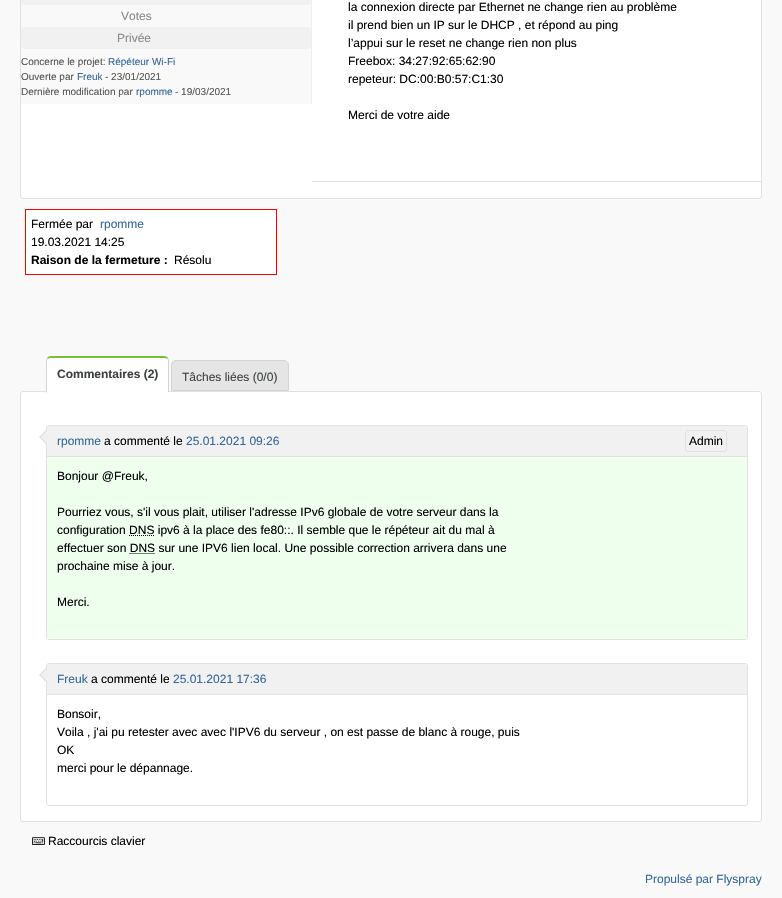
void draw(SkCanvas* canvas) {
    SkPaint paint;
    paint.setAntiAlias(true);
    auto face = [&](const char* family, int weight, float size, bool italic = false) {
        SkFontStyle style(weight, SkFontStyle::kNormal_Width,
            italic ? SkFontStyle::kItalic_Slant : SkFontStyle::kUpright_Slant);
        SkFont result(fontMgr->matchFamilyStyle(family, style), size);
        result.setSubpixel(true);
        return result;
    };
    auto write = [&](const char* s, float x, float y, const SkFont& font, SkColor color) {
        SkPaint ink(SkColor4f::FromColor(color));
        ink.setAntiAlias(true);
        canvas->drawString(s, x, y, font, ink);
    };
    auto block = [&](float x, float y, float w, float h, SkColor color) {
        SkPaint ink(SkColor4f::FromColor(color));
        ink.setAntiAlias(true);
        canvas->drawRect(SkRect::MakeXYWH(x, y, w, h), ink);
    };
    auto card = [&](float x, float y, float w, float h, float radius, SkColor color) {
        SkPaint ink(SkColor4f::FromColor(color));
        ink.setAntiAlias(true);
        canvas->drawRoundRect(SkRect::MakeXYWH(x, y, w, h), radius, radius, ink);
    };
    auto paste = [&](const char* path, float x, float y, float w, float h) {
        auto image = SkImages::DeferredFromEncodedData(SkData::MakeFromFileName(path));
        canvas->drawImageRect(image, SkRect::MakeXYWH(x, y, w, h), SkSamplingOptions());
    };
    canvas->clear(SkColorSetRGB(249, 249, 249));
    paint.setColor(SK_ColorWHITE);
    canvas->drawRoundRect(SkRect::MakeXYWH(20.5f, -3.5f, 741, 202), 2.5f, 2.5f, paint);
    paint.setStyle(SkPaint::kStroke_Style);
    paint.setStrokeWidth(1);
    paint.setColor(SkColorSetRGB(225, 225, 225));
    canvas->drawRoundRect(SkRect::MakeXYWH(20.5f, -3.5f, 741, 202), 2.5f, 2.5f, paint);
    block(21, 1, 290, 103, SkColorSetRGB(249, 249, 249));
    block(311, 0, 1, 104, SkColorSetRGB(238, 238, 238));
    card(21, -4, 290, 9, 4, SkColorSetRGB(241, 241, 241));
    auto kFont1 = face("Liberation Sans", 400, 12);
    write("Votes", 121, 20, kFont1, SkColorSetRGB(136, 136, 136));
    card(21, 27, 290, 22, 4, SkColorSetRGB(241, 241, 241));
    write("Privée", 117, 42, kFont1, SkColorSetRGB(136, 136, 136));
    auto kFont2 = face("Liberation Sans", 400, 10);
    write("Concerne le projet:", 21, 65, kFont2, SkColorSetRGB(85, 85, 85));
    write("Répéteur Wi-Fi", 108, 65, kFont2, SkColorSetRGB(51, 102, 153));
    write("Ouverte par", 21, 80, kFont2, SkColorSetRGB(85, 85, 85));
    write("Freuk", 77, 80, kFont2, SkColorSetRGB(51, 102, 153));
    write("- 23/01/2021", 105, 80, kFont2, SkColorSetRGB(85, 85, 85));
    write("Dernière modification par", 21, 95, kFont2, SkColorSetRGB(85, 85, 85));
    write("rpomme", 136, 95, kFont2, SkColorSetRGB(51, 102, 153));
    write("- 19/03/2021", 175, 95, kFont2, SkColorSetRGB(85, 85, 85));
    write("la connexion directe par Ethernet ne change rien au problème", 348, 11, kFont1, SK_ColorBLACK);
    write("il prend bien un IP sur le DHCP , et répond au ping", 348, 29, kFont1, SK_ColorBLACK);
    write("l’appui sur le reset ne change rien non plus", 348, 47, kFont1, SK_ColorBLACK);
    write("Freebox: 34:27:92:65:62:90", 348, 65, kFont1, SK_ColorBLACK);
    write("repeteur: DC:00:B0:57:C1:30", 348, 83, kFont1, SK_ColorBLACK);
    write("Merci de votre aide", 348, 119, kFont1, SK_ColorBLACK);
    block(312, 181, 449, 1, SkColorSetRGB(225, 225, 225));
    paint.setStyle(SkPaint::kFill_Style);
    paint.setColor(SK_ColorWHITE);
    canvas->drawRect(SkRect::MakeXYWH(25.5f, 209.5f, 251, 65), paint);
    paint.setStyle(SkPaint::kStroke_Style);
    paint.setColor(SkColorSetRGB(255, 0, 0));
    canvas->drawRect(SkRect::MakeXYWH(25.5f, 209.5f, 251, 65), paint);
    write("Fermée par", 31, 228, kFont1, SK_ColorBLACK);
    write("rpomme", 100, 228, kFont1, SkColorSetRGB(51, 102, 153));
    write("19.03.2021 14:25", 31, 246, kFont1, SK_ColorBLACK);
    auto kFont3 = face("Liberation Sans", 700, 12);
    write("Raison de la fermeture :", 31, 264, kFont3, SK_ColorBLACK);
    write("Résolu", 174, 264, kFont1, SK_ColorBLACK);
    paint.setStyle(SkPaint::kFill_Style);
    paint.setColor(SK_ColorWHITE);
    canvas->drawRoundRect(SkRect::MakeXYWH(20.5f, 391.5f, 741, 430), 2.5f, 2.5f, paint);
    paint.setStyle(SkPaint::kStroke_Style);
    paint.setColor(SkColorSetRGB(225, 225, 225));
    canvas->drawRoundRect(SkRect::MakeXYWH(20.5f, 391.5f, 741, 430), 2.5f, 2.5f, paint);
    paint.setStyle(SkPaint::kFill_Style);
    paint.setColor(SK_ColorWHITE);
    canvas->drawPath(SkPathBuilder().moveTo(51, 358).lineTo(164, 358).cubicTo(166, 358, 168, 359, 168, 361).lineTo(168, 392).lineTo(47, 392).lineTo(47, 361).cubicTo(47, 359, 49, 358, 51, 358).close().detach(), paint);
    paint.setColor(SkColorSetRGB(120, 191, 52));
    canvas->drawPath(SkPathBuilder().moveTo(51, 356).cubicTo(49, 356, 48, 357, 47, 358).lineTo(48, 359).cubicTo(48, 358, 50, 358, 51, 358).lineTo(164, 358).cubicTo(165, 358, 167, 358, 167, 359).lineTo(168, 358).cubicTo(167, 357, 166, 356, 164, 356).close().detach(), paint);
    paint.setColor(SkColorSetRGB(212, 212, 212));
    canvas->drawPath(SkPathBuilder().moveTo(169, 393).lineTo(169, 361).cubicTo(169, 360, 168.5f, 358.5f, 168, 358).lineTo(167.5f, 359.5f).cubicTo(168, 359.5f, 168, 360.5f, 168, 361).lineTo(168, 392).close().detach(), paint);
    paint.setColor(SK_ColorWHITE);
    canvas->drawPath(SkPathBuilder().moveTo(169, 393).lineTo(168, 392).lineTo(47, 392).lineTo(46, 393).close().detach(), paint);
    paint.setColor(SkColorSetRGB(212, 212, 212));
    canvas->drawPath(SkPathBuilder().moveTo(46, 393).lineTo(47, 392).lineTo(47, 361).cubicTo(47, 360.5f, 47, 359.5f, 47.5f, 359.5f).lineTo(47, 358).cubicTo(46.5f, 358.5f, 46, 360, 46, 361).close().detach(), paint);
    write("Commentaires (2)", 57, 378, kFont3, SkColorSetRGB(60, 64, 65));
    paint.setColor(SkColorSetRGB(229, 229, 229));
    canvas->drawPath(SkPathBuilder().moveTo(176, 360.5f).lineTo(284, 360.5f).cubicTo(286.5f, 360.5f, 288.5f, 362.5f, 288.5f, 365).lineTo(288.5f, 390.5f).lineTo(171.5f, 390.5f).lineTo(171.5f, 365).cubicTo(171.5f, 362.5f, 173.5f, 360.5f, 176, 360.5f).close().detach(), paint);
    paint.setStyle(SkPaint::kStroke_Style);
    paint.setColor(SkColorSetRGB(212, 212, 212));
    canvas->drawPath(SkPathBuilder().moveTo(176, 360.5f).lineTo(284, 360.5f).cubicTo(286.5f, 360.5f, 288.5f, 362.5f, 288.5f, 365).lineTo(288.5f, 390.5f).lineTo(171.5f, 390.5f).lineTo(171.5f, 365).cubicTo(171.5f, 362.5f, 173.5f, 360.5f, 176, 360.5f).close().detach(), paint);
    write("Tâches liées (0/0)", 182, 381, kFont1, SkColorSetRGB(60, 64, 65));
    paint.setColor(SkColorSetRGB(225, 225, 225));
    canvas->drawRoundRect(SkRect::MakeXYWH(46.5f, 425.5f, 701, 214), 2.5f, 2.5f, paint);
    paint.setStyle(SkPaint::kFill_Style);
    canvas->drawPath(SkPathBuilder().moveTo(47, 429).lineTo(47, 445).lineTo(39, 437).close().detach(), paint);
    paint.setColor(SkColorSetRGB(241, 241, 241));
    canvas->drawPath(SkPathBuilder().moveTo(47, 431).lineTo(47, 443).lineTo(41, 437).close().detach(), paint);
    block(47, 426, 700, 30, SkColorSetRGB(241, 241, 241));
    block(47, 456, 700, 1, SkColorSetRGB(225, 225, 225));
    write("rpomme", 57, 445, kFont1, SkColorSetRGB(51, 102, 153));
    write("a commenté le", 104, 445, kFont1, SK_ColorBLACK);
    write("25.01.2021 09:26", 186, 445, kFont1, SkColorSetRGB(51, 102, 153));
    paint.setStyle(SkPaint::kStroke_Style);
    paint.setColor(SkColorSetRGB(225, 225, 225));
    canvas->drawRoundRect(SkRect::MakeXYWH(685.5f, 430.5f, 41, 21), 2.5f, 2.5f, paint);
    write("Admin", 689, 445, kFont1, SK_ColorBLACK);
    block(47, 457, 700, 182, SkColorSetRGB(238, 255, 238));
    write("Bonjour @Freuk,", 57, 480, kFont1, SK_ColorBLACK);
    write("Pourriez vous, s'il vous plait, utiliser l'adresse IPv6 globale de votre serveur dans la", 57, 516, kFont1, SK_ColorBLACK);
    write("configuration DNS ipv6 à la place des fe80::. Il semble que le répéteur ait du mal à", 57, 534, kFont1, SK_ColorBLACK);
    paint.setColor(SK_ColorBLACK);
    paint.setPathEffect(SkDashPathEffect::Make({{1, 1}}, 0));
    canvas->drawPath(SkPathBuilder().moveTo(129, 535.5f).lineTo(154.5f, 535.5f).detach(), paint);
    paint.setPathEffect(nullptr);
    write("effectuer son DNS sur une IPV6 lien local. Une possible correction arrivera dans une", 57, 552, kFont1, SK_ColorBLACK);
    paint.setPathEffect(SkDashPathEffect::Make({{1, 1}}, 0));
    canvas->drawPath(SkPathBuilder().moveTo(129.5f, 553.5f).lineTo(155, 553.5f).detach(), paint);
    paint.setPathEffect(nullptr);
    write("prochaine mise à jour.", 57, 570, kFont1, SK_ColorBLACK);
    write("Merci.", 57, 606, kFont1, SK_ColorBLACK);
    paint.setColor(SkColorSetRGB(225, 225, 225));
    canvas->drawRoundRect(SkRect::MakeXYWH(46.5f, 663.5f, 701, 142), 2.5f, 2.5f, paint);
    paint.setStyle(SkPaint::kFill_Style);
    canvas->drawPath(SkPathBuilder().moveTo(47, 667).lineTo(47, 683).lineTo(39, 675).close().detach(), paint);
    paint.setColor(SkColorSetRGB(241, 241, 241));
    canvas->drawPath(SkPathBuilder().moveTo(47, 669).lineTo(47, 681).lineTo(41, 675).close().detach(), paint);
    block(47, 664, 700, 30, SkColorSetRGB(241, 241, 241));
    block(47, 694, 700, 1, SkColorSetRGB(225, 225, 225));
    write("Freuk", 57, 683, kFont1, SkColorSetRGB(51, 102, 153));
    write("a commenté le", 91, 683, kFont1, SK_ColorBLACK);
    write("25.01.2021 17:36", 173, 683, kFont1, SkColorSetRGB(51, 102, 153));
    write("Bonsoir,", 57, 718, kFont1, SK_ColorBLACK);
    write("Voila , j'ai pu retester avec avec l'IPV6 du serveur , on est passe de blanc à rouge, puis", 57, 736, kFont1, SK_ColorBLACK);
    write("OK", 57, 754, kFont1, SK_ColorBLACK);
    write("merci pour le dépannage.", 57, 772, kFont1, SK_ColorBLACK);
    paste("pic1.png", 32, 837, 13, 8);
    write("Raccourcis clavier", 48, 845, kFont1, SK_ColorBLACK);
    write("Propulsé par Flyspray", 645, 883, kFont1, SkColorSetRGB(51, 102, 153));
}
